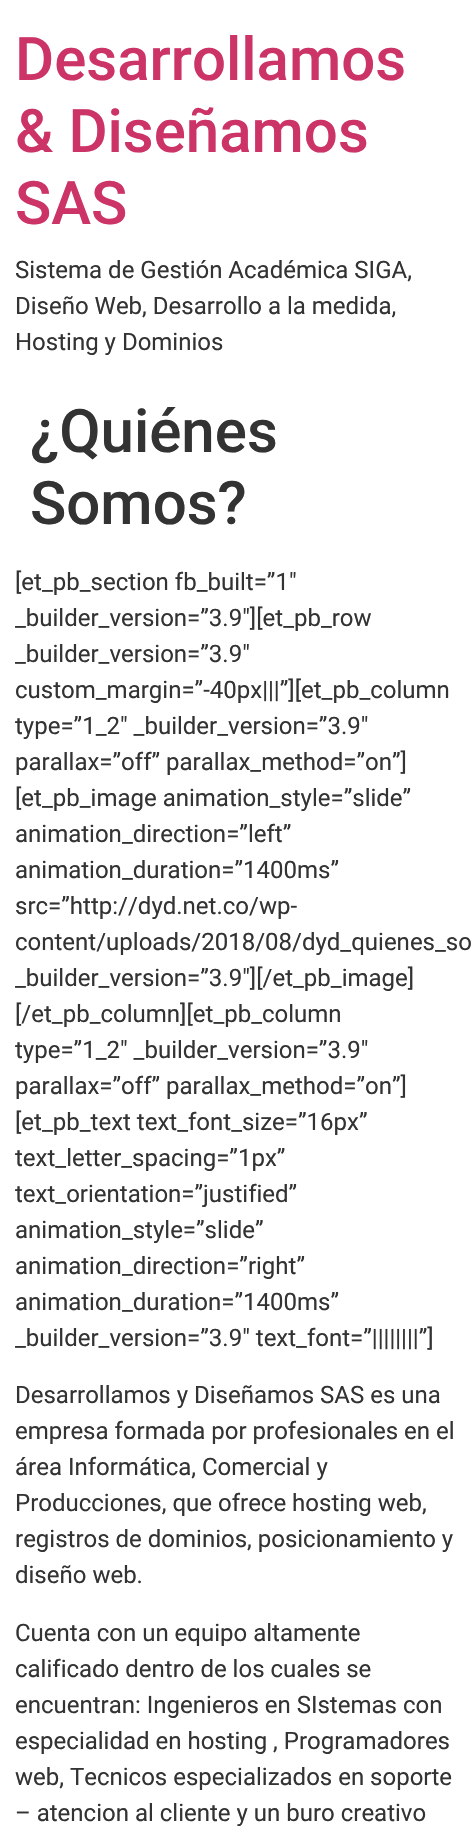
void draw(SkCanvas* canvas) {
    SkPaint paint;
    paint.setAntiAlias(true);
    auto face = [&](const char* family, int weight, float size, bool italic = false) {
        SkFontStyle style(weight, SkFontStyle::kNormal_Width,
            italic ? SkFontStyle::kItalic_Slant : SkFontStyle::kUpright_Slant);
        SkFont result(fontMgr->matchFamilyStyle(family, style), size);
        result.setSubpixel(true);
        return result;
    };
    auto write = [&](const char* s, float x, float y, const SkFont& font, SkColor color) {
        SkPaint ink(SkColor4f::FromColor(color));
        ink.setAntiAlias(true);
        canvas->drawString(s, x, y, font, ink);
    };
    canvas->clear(SK_ColorWHITE);
    auto kFont1 = face("Roboto", 500, 60);
    write("Desarrollamos", 15, 80, kFont1, SkColorSetRGB(204, 51, 102));
    write("& Diseñamos", 15, 152, kFont1, SkColorSetRGB(204, 51, 102));
    write("SAS", 15, 224, kFont1, SkColorSetRGB(204, 51, 102));
    auto kFont2 = face("Roboto", 400, 24);
    write("Sistema de Gestión Académica SIGA,", 15, 278, kFont2, SkColorSetRGB(51, 51, 51));
    write("Diseño Web, Desarrollo a la medida,", 15, 314, kFont2, SkColorSetRGB(51, 51, 51));
    write("Hosting y Dominios", 15, 350, kFont2, SkColorSetRGB(51, 51, 51));
    write("¿Quiénes", 30, 452, kFont1, SkColorSetRGB(51, 51, 51));
    write("Somos?", 30, 524, kFont1, SkColorSetRGB(51, 51, 51));
    write("[et_pb_section fb_built=”1″", 15, 590, kFont2, SkColorSetRGB(51, 51, 51));
    write("_builder_version=”3.9″][et_pb_row", 15, 626, kFont2, SkColorSetRGB(51, 51, 51));
    write("_builder_version=”3.9″", 15, 662, kFont2, SkColorSetRGB(51, 51, 51));
    write("custom_margin=”-40px|||”][et_pb_column", 15, 698, kFont2, SkColorSetRGB(51, 51, 51));
    write("type=”1_2″ _builder_version=”3.9″", 15, 734, kFont2, SkColorSetRGB(51, 51, 51));
    write("parallax=”off” parallax_method=”on”]", 15, 770, kFont2, SkColorSetRGB(51, 51, 51));
    write("[et_pb_image animation_style=”slide”", 15, 806, kFont2, SkColorSetRGB(51, 51, 51));
    write("animation_direction=”left”", 15, 842, kFont2, SkColorSetRGB(51, 51, 51));
    write("animation_duration=”1400ms”", 15, 878, kFont2, SkColorSetRGB(51, 51, 51));
    write("src=”http://dyd.net.co/wp-", 15, 914, kFont2, SkColorSetRGB(51, 51, 51));
    write("content/uploads/2018/08/dyd_quienes_so", 15, 950, kFont2, SkColorSetRGB(51, 51, 51));
    write("_builder_version=”3.9″][/et_pb_image]", 15, 986, kFont2, SkColorSetRGB(51, 51, 51));
    write("[/et_pb_column][et_pb_column", 15, 1022, kFont2, SkColorSetRGB(51, 51, 51));
    write("type=”1_2″ _builder_version=”3.9″", 15, 1058, kFont2, SkColorSetRGB(51, 51, 51));
    write("parallax=”off” parallax_method=”on”]", 15, 1094, kFont2, SkColorSetRGB(51, 51, 51));
    write("[et_pb_text text_font_size=”16px”", 15, 1130, kFont2, SkColorSetRGB(51, 51, 51));
    write("text_letter_spacing=”1px”", 15, 1166, kFont2, SkColorSetRGB(51, 51, 51));
    write("text_orientation=”justified”", 15, 1202, kFont2, SkColorSetRGB(51, 51, 51));
    write("animation_style=”slide”", 15, 1238, kFont2, SkColorSetRGB(51, 51, 51));
    write("animation_direction=”right”", 15, 1274, kFont2, SkColorSetRGB(51, 51, 51));
    write("animation_duration=”1400ms”", 15, 1310, kFont2, SkColorSetRGB(51, 51, 51));
    write("_builder_version=”3.9″ text_font=”||||||||”]", 15, 1346, kFont2, SkColorSetRGB(51, 51, 51));
    write("Desarrollamos y Diseñamos SAS es una", 15, 1403, kFont2, SkColorSetRGB(51, 51, 51));
    write("empresa formada por profesionales en el", 15, 1439, kFont2, SkColorSetRGB(51, 51, 51));
    write("área Informática, Comercial y", 15, 1475, kFont2, SkColorSetRGB(51, 51, 51));
    write("Producciones, que ofrece hosting web,", 15, 1511, kFont2, SkColorSetRGB(51, 51, 51));
    write("registros de dominios, posicionamiento y", 15, 1547, kFont2, SkColorSetRGB(51, 51, 51));
    write("diseño web.", 15, 1583, kFont2, SkColorSetRGB(51, 51, 51));
    write("Cuenta con un equipo altamente", 15, 1641, kFont2, SkColorSetRGB(51, 51, 51));
    write("calificado dentro de los cuales se", 15, 1677, kFont2, SkColorSetRGB(51, 51, 51));
    write("encuentran: Ingenieros en SIstemas con", 15, 1713, kFont2, SkColorSetRGB(51, 51, 51));
    write("especialidad en hosting , Programadores", 15, 1749, kFont2, SkColorSetRGB(51, 51, 51));
    write("web, Tecnicos especializados en soporte", 15, 1785, kFont2, SkColorSetRGB(51, 51, 51));
    write("– atencion al cliente y un buro creativo", 15, 1821, kFont2, SkColorSetRGB(51, 51, 51));
}
